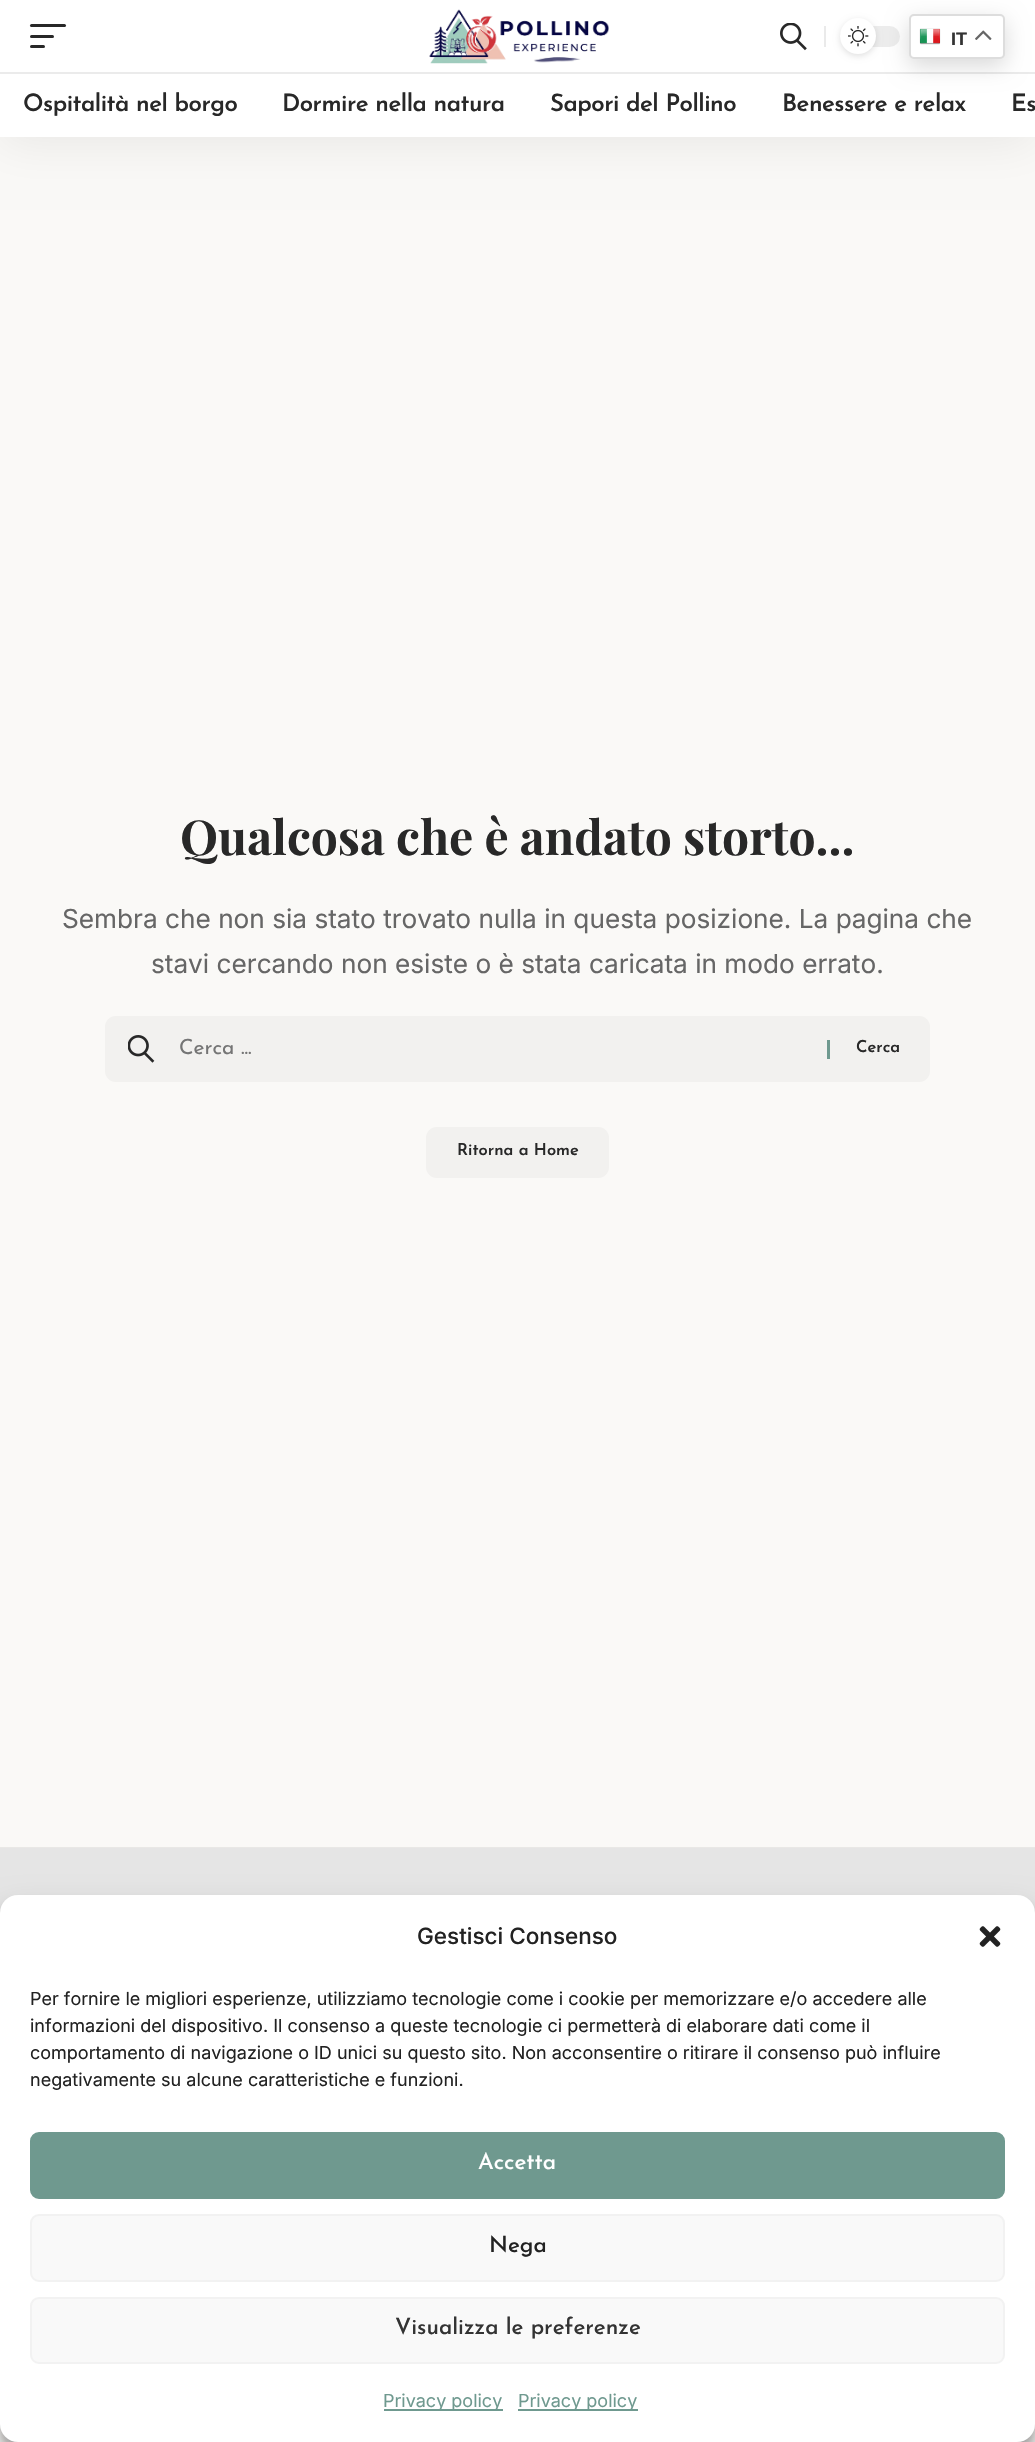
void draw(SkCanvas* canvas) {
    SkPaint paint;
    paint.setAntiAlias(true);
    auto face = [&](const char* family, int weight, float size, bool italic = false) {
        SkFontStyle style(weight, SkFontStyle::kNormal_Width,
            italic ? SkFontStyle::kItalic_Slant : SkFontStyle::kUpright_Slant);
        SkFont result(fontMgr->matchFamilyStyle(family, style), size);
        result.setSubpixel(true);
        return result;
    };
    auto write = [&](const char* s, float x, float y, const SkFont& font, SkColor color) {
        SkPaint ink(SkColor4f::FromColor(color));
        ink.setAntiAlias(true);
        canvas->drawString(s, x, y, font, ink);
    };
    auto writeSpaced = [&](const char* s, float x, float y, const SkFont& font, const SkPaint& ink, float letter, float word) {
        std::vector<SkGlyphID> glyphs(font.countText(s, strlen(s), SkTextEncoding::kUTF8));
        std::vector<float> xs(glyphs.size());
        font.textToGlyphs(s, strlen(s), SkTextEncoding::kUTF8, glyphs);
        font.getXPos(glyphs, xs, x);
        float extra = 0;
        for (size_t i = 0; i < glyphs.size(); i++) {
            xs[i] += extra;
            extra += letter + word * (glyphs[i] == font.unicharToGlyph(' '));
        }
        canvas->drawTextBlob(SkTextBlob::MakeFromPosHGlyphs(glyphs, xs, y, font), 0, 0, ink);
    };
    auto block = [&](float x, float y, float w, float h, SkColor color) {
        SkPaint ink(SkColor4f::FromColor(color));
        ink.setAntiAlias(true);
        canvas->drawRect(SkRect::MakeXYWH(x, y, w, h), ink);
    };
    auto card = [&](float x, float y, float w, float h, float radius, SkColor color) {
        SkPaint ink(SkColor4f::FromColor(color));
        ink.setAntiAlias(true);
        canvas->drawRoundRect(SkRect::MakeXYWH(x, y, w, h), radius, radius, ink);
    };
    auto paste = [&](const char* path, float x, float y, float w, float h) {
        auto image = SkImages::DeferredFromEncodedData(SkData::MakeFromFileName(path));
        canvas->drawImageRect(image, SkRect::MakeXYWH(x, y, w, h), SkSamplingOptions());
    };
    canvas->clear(SkColorSetRGB(250, 249, 247));
    paint.setColor(SkColorSetARGB(18, 0, 0, 0));
    paint.setMaskFilter(SkMaskFilter::MakeBlur(kNormal_SkBlurStyle, 22.5f));
    canvas->drawRect(SkRect::MakeXYWH(0, 6, 1035, 137), paint);
    paint.setMaskFilter(nullptr);
    block(0, 0, 1035, 137, SK_ColorWHITE);
    card(30, 24, 36, 3, 1.5f, SkColorSetRGB(40, 40, 40));
    card(30, 35, 24, 3, 1.5f, SkColorSetRGB(40, 40, 40));
    card(30, 45, 15, 3, 1.5f, SkColorSetRGB(40, 40, 40));
    paste("pic1.png", 429, 9, 180, 55);
    paste("pic2.png", 780, 23, 27, 28);
    block(824, 26, 2, 21, SkColorSetRGB(234, 234, 234));
    paint.setColor(SkColorSetARGB(38, 0, 0, 0));
    paint.setMaskFilter(SkMaskFilter::MakeBlur(kNormal_SkBlurStyle, 11));
    canvas->drawRoundRect(SkRect::MakeXYWH(909, 21, 96, 45), 3, 3, paint);
    paint.setMaskFilter(nullptr);
    card(840, 26, 60, 21, 10.5f, SkColorSetARGB(38, 136, 136, 136));
    paint.setColor(SkColorSetARGB(31, 0, 0, 0));
    paint.setMaskFilter(SkMaskFilter::MakeBlur(kNormal_SkBlurStyle, 3));
    canvas->drawRoundRect(SkRect::MakeXYWH(840, 20, 36, 36), 18, 18, paint);
    paint.setMaskFilter(nullptr);
    paint.setColor(SK_ColorWHITE);
    canvas->drawCircle(858, 36, 18, paint);
    paste("pic3.png", 848, 26, 21, 21);
    canvas->drawRoundRect(SkRect::MakeXYWH(910, 15, 94, 43), 4, 4, paint);
    paint.setStyle(SkPaint::kStroke_Style);
    paint.setStrokeWidth(2);
    paint.setColor(SkColorSetRGB(221, 221, 221));
    canvas->drawRoundRect(SkRect::MakeXYWH(910, 15, 94, 43), 4, 4, paint);
    paste("pic4.png", 919, 28, 22, 17);
    auto kFont1 = face("Liberation Sans", 700, 18);
    write("IT", 951, 45, kFont1, SkColorSetRGB(51, 51, 51));
    paste("pic5.png", 975, 30, 17, 10);
    block(0, 72, 1035, 2, SkColorSetARGB(20, 0, 0, 0));
    auto kFont2 = face("Josefin Sans", 600, 24);
    paint.setStyle(SkPaint::kFill_Style);
    paint.setColor(SkColorSetRGB(40, 40, 40));
    writeSpaced("Ospitalità nel borgo", 23, 111, kFont2, paint, -0.5f, 0);
    writeSpaced("Dormire nella natura", 282, 111, kFont2, paint, -0.5f, 0);
    writeSpaced("Sapori del Pollino", 550, 111, kFont2, paint, -0.5f, 0);
    writeSpaced("Benessere e relax", 782, 111, kFont2, paint, -0.5f, 0);
    writeSpaced("Es", 1011, 111, kFont2, paint, -0.5f, 0);
    auto kFont3 = face("Playfair Display", 700, 48);
    write("Qualcosa che è andato storto...", 180, 855, kFont3, SkColorSetRGB(40, 40, 40));
    auto kFont4 = face("Inter", 400, 26.2f);
    write("Sembra che non sia stato trovato nulla in questa posizione. La pagina che", 62, 928, kFont4, SkColorSetRGB(102, 102, 102));
    write("stavi cercando non esiste o è stata caricata in modo errato.", 151, 973, kFont4, SkColorSetRGB(102, 102, 102));
    card(105, 1016, 825, 66, 11, SkColorSetRGB(242, 241, 239));
    paste("pic6.png", 128, 1035, 27, 28);
    auto kFont5 = face("Josefin Sans", 400, 21);
    write("Cerca ...", 179, 1054, kFont5, SkColorSetRGB(117, 117, 117));
    block(827, 1040, 3, 19, SkColorSetRGB(111, 153, 143));
    auto kFont6 = face("Josefin Sans", 600, 16.5f);
    write("Cerca", 856, 1052, kFont6, SkColorSetRGB(40, 40, 40));
    card(426, 1127, 183, 51, 11, SkColorSetRGB(242, 241, 239));
    write("Ritorna a Home", 457, 1155, kFont6, SkColorSetRGB(40, 40, 40));
    block(0, 1847, 1035, 1, SkColorSetRGB(233, 232, 230));
    block(0, 1848, 1035, 65, SkColorSetRGB(229, 229, 229));
    paint.setColor(SkColorSetARGB(59, 0, 0, 0));
    paint.setMaskFilter(SkMaskFilter::MakeBlur(kNormal_SkBlurStyle, 4.5f));
    canvas->drawRoundRect(SkRect::MakeXYWH(0, 1904, 1035, 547), 18, 18, paint);
    paint.setMaskFilter(nullptr);
    paint.setColor(SkColorSetARGB(48, 0, 0, 0));
    paint.setMaskFilter(SkMaskFilter::MakeBlur(kNormal_SkBlurStyle, 15));
    canvas->drawRoundRect(SkRect::MakeXYWH(0, 1910, 1035, 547), 18, 18, paint);
    paint.setMaskFilter(nullptr);
    card(0, 1895, 1035, 547, 18, SK_ColorWHITE);
    auto kFont7 = face("Inter", 500, 22.5f);
    write("Gestisci Consenso", 417, 1944, kFont7, SkColorSetRGB(34, 34, 34));
    paste("pic7.png", 979, 1926, 22, 21);
    auto kFont8 = face("Inter", 400, 18);
    write("Per fornire le migliori esperienze, utilizziamo tecnologie come i cookie per memorizzare e/o accedere alle", 30, 2005, kFont8, SkColorSetRGB(34, 34, 34));
    write("informazioni del dispositivo. Il consenso a queste tecnologie ci permetterà di elaborare dati come il", 30, 2032, kFont8, SkColorSetRGB(34, 34, 34));
    write("comportamento di navigazione o ID unici su questo sito. Non acconsentire o ritirare il consenso può influire", 30, 2059, kFont8, SkColorSetRGB(34, 34, 34));
    write("negativamente su alcune caratteristiche e funzioni.", 30, 2086, kFont8, SkColorSetRGB(34, 34, 34));
    paint.setColor(SkColorSetRGB(111, 153, 143));
    canvas->drawRoundRect(SkRect::MakeXYWH(31, 2133, 973, 65), 8, 8, paint);
    paint.setStyle(SkPaint::kStroke_Style);
    canvas->drawRoundRect(SkRect::MakeXYWH(31, 2133, 973, 65), 8, 8, paint);
    auto kFont9 = face("Josefin Sans", 500, 22.5f);
    write("Accetta", 478, 2169, kFont9, SK_ColorWHITE);
    paint.setStyle(SkPaint::kFill_Style);
    paint.setColor(SkColorSetRGB(249, 249, 249));
    canvas->drawRoundRect(SkRect::MakeXYWH(31, 2215, 973, 66), 8, 8, paint);
    paint.setStyle(SkPaint::kStroke_Style);
    paint.setColor(SkColorSetRGB(242, 242, 242));
    canvas->drawRoundRect(SkRect::MakeXYWH(31, 2215, 973, 66), 8, 8, paint);
    write("Nega", 489, 2252, kFont9, SkColorSetRGB(34, 34, 34));
    paint.setStyle(SkPaint::kFill_Style);
    paint.setColor(SkColorSetRGB(249, 249, 249));
    canvas->drawRoundRect(SkRect::MakeXYWH(31, 2298, 973, 65), 8, 8, paint);
    paint.setStyle(SkPaint::kStroke_Style);
    paint.setColor(SkColorSetRGB(242, 242, 242));
    canvas->drawRoundRect(SkRect::MakeXYWH(31, 2298, 973, 65), 8, 8, paint);
    write("Visualizza le preferenze", 395, 2334, kFont9, SkColorSetRGB(51, 51, 51));
    block(384, 2409, 119, 2, SkColorSetRGB(111, 153, 143));
    write("Privacy policy", 383, 2407, kFont8, SkColorSetRGB(111, 153, 143));
    block(518, 2409, 120, 2, SkColorSetRGB(111, 153, 143));
    write("Privacy policy", 518, 2407, kFont8, SkColorSetRGB(111, 153, 143));
}
